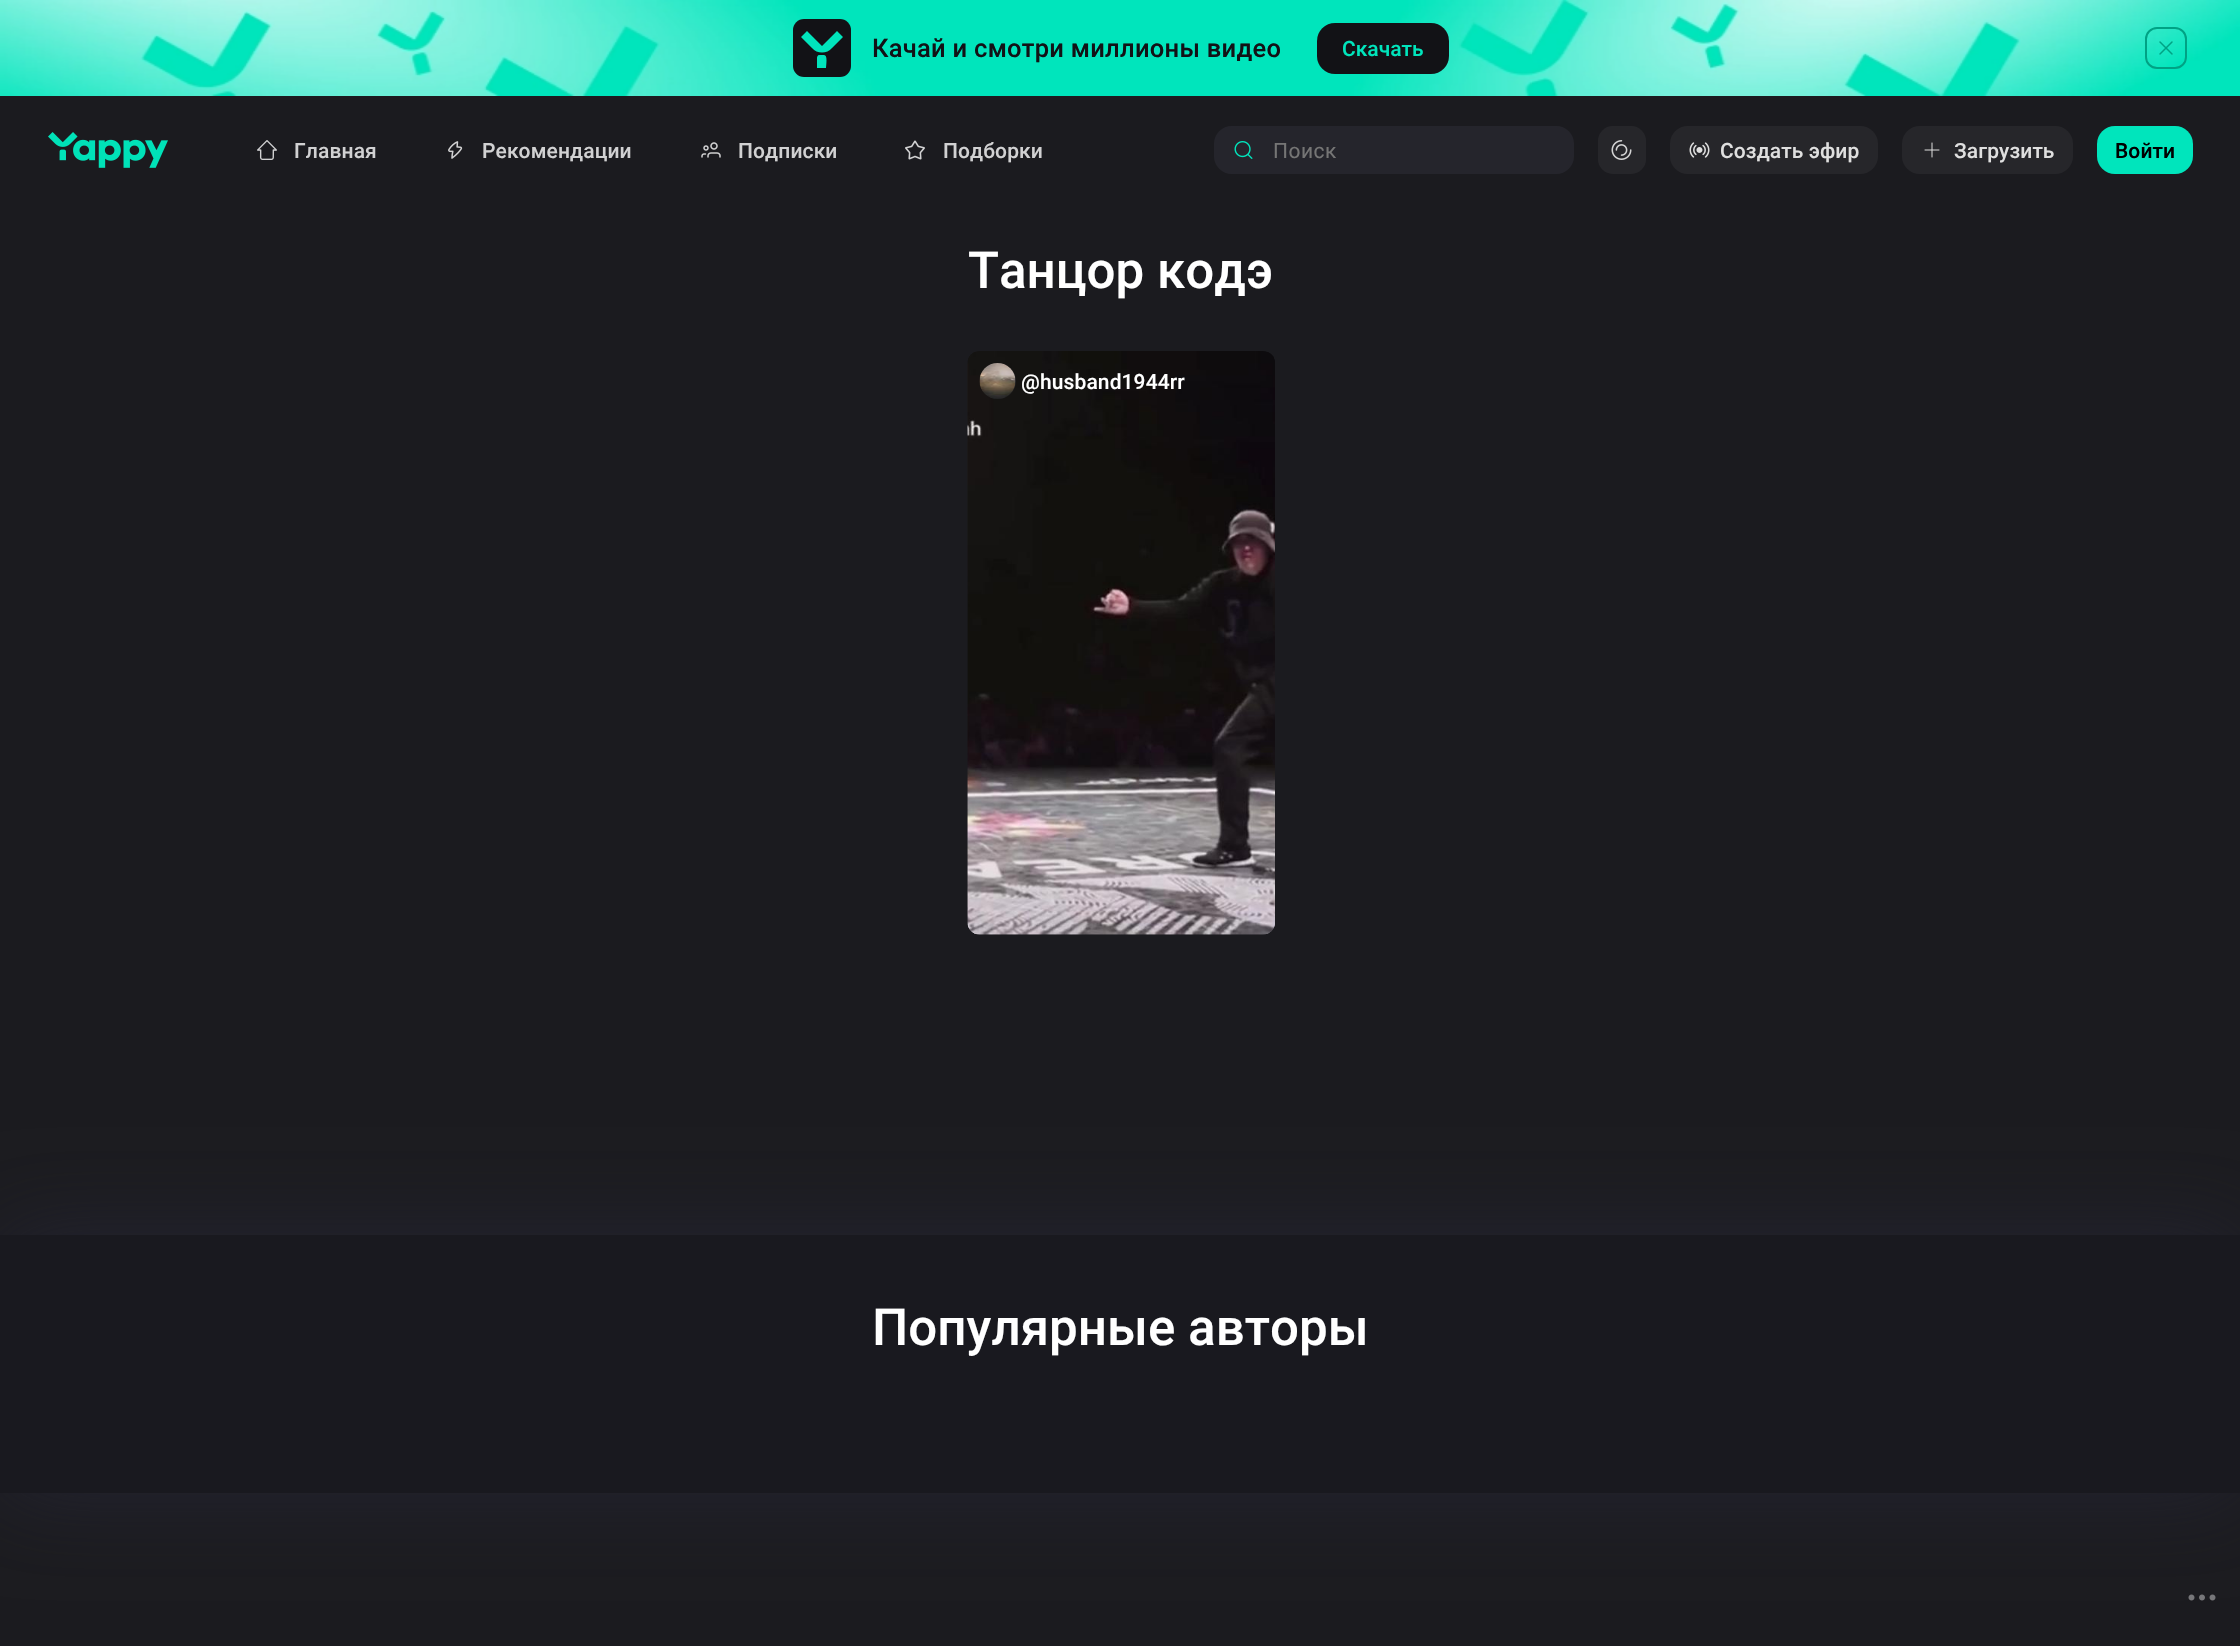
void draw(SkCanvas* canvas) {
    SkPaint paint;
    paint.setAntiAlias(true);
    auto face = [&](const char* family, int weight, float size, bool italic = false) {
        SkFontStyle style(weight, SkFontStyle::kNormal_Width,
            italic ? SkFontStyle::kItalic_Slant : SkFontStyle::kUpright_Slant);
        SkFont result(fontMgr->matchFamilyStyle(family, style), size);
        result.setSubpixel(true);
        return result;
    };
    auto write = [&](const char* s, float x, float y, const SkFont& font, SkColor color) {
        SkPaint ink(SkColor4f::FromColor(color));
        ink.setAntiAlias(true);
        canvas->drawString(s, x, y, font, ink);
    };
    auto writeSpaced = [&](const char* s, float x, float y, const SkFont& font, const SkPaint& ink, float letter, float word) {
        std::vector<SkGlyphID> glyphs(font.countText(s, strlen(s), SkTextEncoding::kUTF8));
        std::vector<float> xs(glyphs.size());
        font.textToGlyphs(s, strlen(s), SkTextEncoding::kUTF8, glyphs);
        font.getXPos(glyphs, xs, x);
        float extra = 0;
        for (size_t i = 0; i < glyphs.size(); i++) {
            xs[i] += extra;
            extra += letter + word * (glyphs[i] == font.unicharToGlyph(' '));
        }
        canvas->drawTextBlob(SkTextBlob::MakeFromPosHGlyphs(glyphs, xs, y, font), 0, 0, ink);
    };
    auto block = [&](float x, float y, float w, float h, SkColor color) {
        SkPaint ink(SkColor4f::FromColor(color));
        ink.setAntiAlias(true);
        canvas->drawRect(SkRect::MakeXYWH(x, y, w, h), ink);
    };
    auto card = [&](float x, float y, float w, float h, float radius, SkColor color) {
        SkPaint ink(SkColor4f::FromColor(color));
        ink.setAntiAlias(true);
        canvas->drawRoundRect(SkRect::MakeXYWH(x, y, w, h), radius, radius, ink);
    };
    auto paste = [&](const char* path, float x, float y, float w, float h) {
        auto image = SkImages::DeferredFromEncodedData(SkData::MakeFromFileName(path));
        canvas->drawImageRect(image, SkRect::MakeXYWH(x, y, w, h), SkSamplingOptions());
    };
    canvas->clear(SkColorSetRGB(27, 27, 31));
    paste("pic1.png", 0, 0, 2240, 96);
    card(793, 19, 58, 58, 11, SkColorSetRGB(18, 18, 22));
    paint.setColor(SkColorSetRGB(0, 229, 188));
    canvas->drawPath(SkPathBuilder().moveTo(824, 55).cubicTo(819, 55, 817, 54, 817, 59).lineTo(817, 68).lineTo(826, 68).cubicTo(826, 65, 828, 55, 824, 55).close().moveTo(832, 48).lineTo(843, 37).lineTo(837, 31).lineTo(822, 46).lineTo(807, 31).lineTo(801, 37).lineTo(812, 48).cubicTo(817, 54, 827, 54, 832, 48).close().detach(), paint);
    auto kFont1 = face("Roboto", 500, 25.5f);
    paint.setColor(SkColorSetRGB(18, 18, 22));
    writeSpaced("Качай и смотри миллионы видео", 872, 57, kFont1, paint, 0.25f, 0);
    card(1317, 23, 132, 51, 18, SkColorSetRGB(18, 18, 22));
    auto kFont2 = face("Roboto", 500, 21);
    write("Скачать", 1342, 56, kFont2, SkColorSetRGB(0, 229, 188));
    paint.setStyle(SkPaint::kStroke_Style);
    paint.setStrokeWidth(2);
    paint.setColor(SkColorSetRGB(0, 162, 132));
    canvas->drawRoundRect(SkRect::MakeXYWH(2146, 28, 40, 40), 11, 11, paint);
    paste("pic2.png", 2159, 41, 14, 14);
    paste("pic3.png", 48, 132, 120, 36);
    paste("pic4.png", 257, 140, 20, 20);
    paint.setStyle(SkPaint::kFill_Style);
    paint.setColor(SkColorSetRGB(209, 209, 210));
    writeSpaced("Главная", 294, 158, kFont2, paint, 0.1f, 0);
    paste("pic5.png", 448, 141, 15, 18);
    writeSpaced("Рекомендации", 482, 158, kFont2, paint, 0.1f, 0);
    paste("pic6.png", 701, 142, 20, 16);
    writeSpaced("Подписки", 738, 158, kFont2, paint, 0.1f, 0);
    paste("pic7.png", 905, 140, 20, 20);
    writeSpaced("Подборки", 943, 158, kFont2, paint, 0.1f, 0);
    card(1214, 126, 360, 48, 18, SkColorSetRGB(37, 37, 44));
    paste("pic8.png", 1234, 141, 19, 18);
    auto kFont3 = face("Roboto", 400, 21);
    paint.setColor(SkColorSetRGB(117, 117, 117));
    writeSpaced("Поиск", 1273, 158, kFont3, paint, 0.5f, 0);
    card(1598, 126, 48, 48, 15, SkColorSetRGB(38, 38, 42));
    paste("pic9.png", 1611, 140, 21, 20);
    card(1670, 126, 208, 48, 18, SkColorSetRGB(38, 38, 42));
    paste("pic10.png", 1689, 142, 21, 16);
    paint.setColor(SkColorSetRGB(223, 223, 223));
    writeSpaced("Создать эфир", 1720, 158, kFont2, paint, 0.1f, 0);
    card(1902, 126, 171, 48, 18, SkColorSetRGB(38, 38, 42));
    paint.setStyle(SkPaint::kStroke_Style);
    paint.setStrokeWidth(1);
    paint.setStrokeCap(SkPaint::kRound_Cap);
    paint.setStrokeJoin(SkPaint::kRound_Join);
    canvas->drawPath(SkPathBuilder().moveTo(1932, 143).lineTo(1932, 157).moveTo(1925, 150).lineTo(1939, 150).detach(), paint);
    paint.setStyle(SkPaint::kFill_Style);
    writeSpaced("Загрузить", 1954, 158, kFont2, paint, 0.1f, 0);
    card(2097, 126, 96, 48, 18, SkColorSetRGB(0, 229, 188));
    paint.setColor(SK_ColorBLACK);
    writeSpaced("Войти", 2115, 158, kFont2, paint, 0.1f, 0);
    auto kFont4 = face("Roboto", 500, 51);
    write("Танцор кодэ", 968, 288, kFont4, SK_ColorWHITE);
    paste("pic11.png", 967, 351, 308, 584);
    paste("pic12.png", 967, 352, 308, 583);
    paint.setColor(SkColorSetRGB(27, 27, 31));
    canvas->drawCircle(998, 381, 18, paint);
    paste("pic13.png", 979, 363, 37, 36);
    canvas->save();
    canvas->clipRect(SkRect::MakeXYWH(1022, 368, 163, 27));
    paint.setColor(SK_ColorWHITE);
    writeSpaced("@", 1021, 389, kFont2, paint, 0.1f, 0);
    canvas->restore();
    writeSpaced("husband1944rr", 1040, 389, kFont2, paint, 0.1f, 0);
    paint.setColor(SkColorSetARGB(179, 39, 39, 55));
    paint.setMaskFilter(SkMaskFilter::MakeBlur(kNormal_SkBlurStyle, 45));
    canvas->drawRect(SkRect::MakeXYWH(0, 1235, 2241, 258), paint);
    paint.setMaskFilter(nullptr);
    block(0, 1235, 2240, 258, SkColorSetRGB(25, 25, 31));
    write("Популярные авторы", 872, 1345, kFont4, SK_ColorWHITE);
    paste("pic14.png", 2188, 1594, 28, 7);
}
